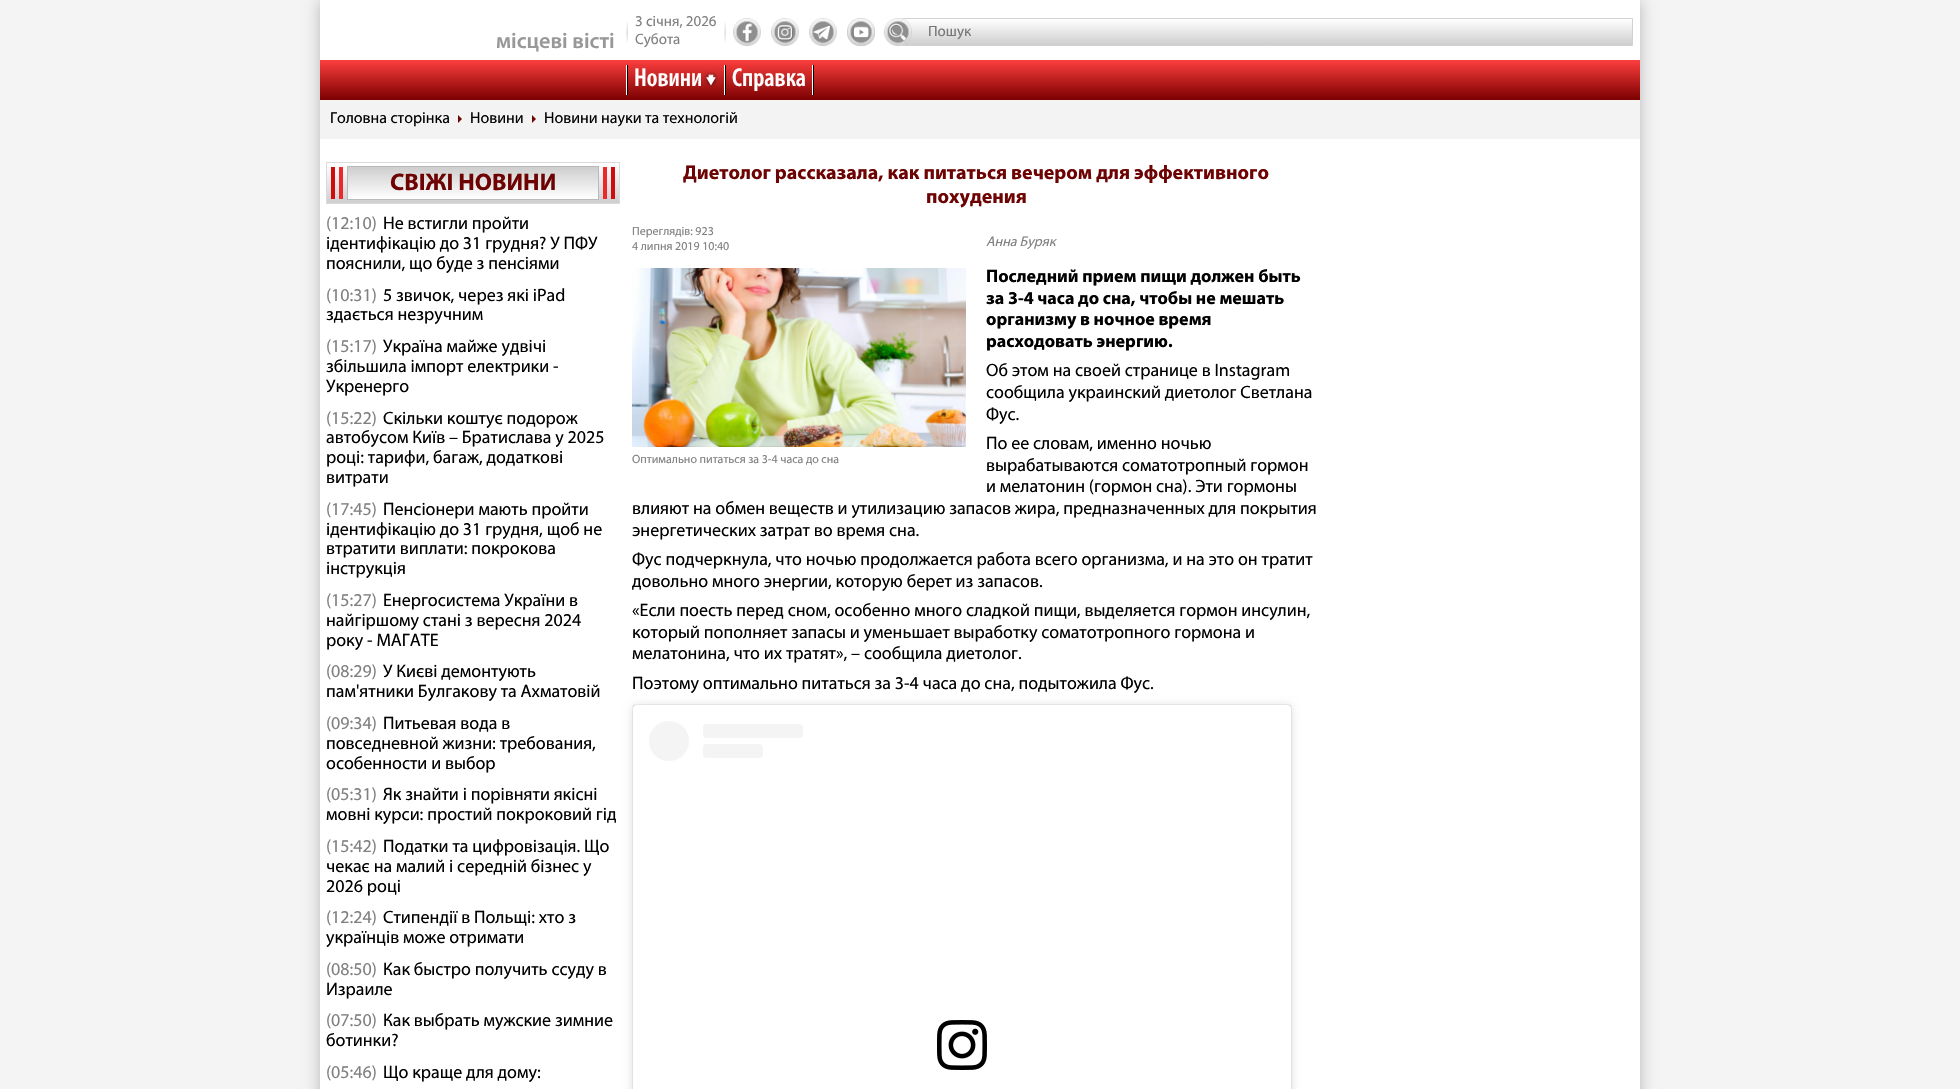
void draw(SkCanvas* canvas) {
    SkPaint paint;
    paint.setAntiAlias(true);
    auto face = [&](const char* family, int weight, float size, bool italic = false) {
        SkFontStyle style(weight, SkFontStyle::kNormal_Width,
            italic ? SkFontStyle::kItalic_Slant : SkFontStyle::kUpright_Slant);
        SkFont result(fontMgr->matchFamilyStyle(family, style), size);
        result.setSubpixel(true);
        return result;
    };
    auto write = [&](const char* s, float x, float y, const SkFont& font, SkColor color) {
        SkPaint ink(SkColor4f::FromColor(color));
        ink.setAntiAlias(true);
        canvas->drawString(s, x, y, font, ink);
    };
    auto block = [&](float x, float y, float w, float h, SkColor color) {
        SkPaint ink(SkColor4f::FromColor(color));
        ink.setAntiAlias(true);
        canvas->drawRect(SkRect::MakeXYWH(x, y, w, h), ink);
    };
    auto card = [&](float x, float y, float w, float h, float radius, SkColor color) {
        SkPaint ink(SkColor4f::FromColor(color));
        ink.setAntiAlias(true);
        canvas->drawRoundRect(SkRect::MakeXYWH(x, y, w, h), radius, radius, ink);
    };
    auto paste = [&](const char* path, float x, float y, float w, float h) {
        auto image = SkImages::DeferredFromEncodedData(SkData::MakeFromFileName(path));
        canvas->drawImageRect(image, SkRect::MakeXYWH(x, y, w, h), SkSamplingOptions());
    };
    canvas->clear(SkColorSetRGB(244, 244, 244));
    paint.setColor(SkColorSetARGB(64, 0, 0, 0));
    paint.setMaskFilter(SkMaskFilter::MakeBlur(kNormal_SkBlurStyle, 7.5f));
    canvas->drawRect(SkRect::MakeXYWH(320, 0, 1320, 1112), paint);
    paint.setMaskFilter(nullptr);
    block(320, 0, 1320, 1089, SK_ColorWHITE);
    auto kFont1 = face("Myriad", 600, 22);
    write("місцеві вісті", 496, 48, kFont1, SkColorSetRGB(152, 152, 152));
    paste("pic1.png", 626, 22, 2, 21);
    auto kFont2 = face("Myriad", 400, 15);
    write("3 січня, 2026", 635, 26, kFont2, SkColorSetRGB(128, 128, 128));
    write("Субота", 635, 44, kFont2, SkColorSetRGB(128, 128, 128));
    paste("pic1.png", 724, 22, 2, 21);
    paste("pic2.png", 733, 18, 28, 28);
    paste("pic3.png", 771, 18, 28, 28);
    paste("pic4.png", 809, 18, 28, 28);
    paste("pic5.png", 847, 18, 28, 28);
    canvas->save();
    canvas->clipPath(SkPathBuilder().moveTo(905, 18).lineTo(1633, 18).lineTo(1633, 46).lineTo(905, 46).cubicTo(897.5f, 46, 891, 39.5f, 891, 32).cubicTo(891, 24.5f, 897.5f, 18, 905, 18).close().detach(), true);
    {
        const SkColor colors[] = {SkColorSetRGB(206, 206, 206), SK_ColorWHITE};
        const float stops[] = {0, 1};
        const SkPoint ends[] = {{1262, 45}, {1262, 19}};
        paint.setShader(SkGradientShader::MakeLinear(ends, colors, stops, 2, SkTileMode::kClamp));
        paint.setAlpha(255);
    }
    canvas->drawRect(SkRect::MakeXYWH(901, 19, 731, 26), paint);
    canvas->restore();
    paint.setStyle(SkPaint::kStroke_Style);
    paint.setStrokeWidth(1);
    paint.setShader(nullptr);
    paint.setColor(SkColorSetRGB(211, 209, 209));
    canvas->drawPath(SkPathBuilder().moveTo(905, 18.5f).lineTo(1632.5f, 18.5f).lineTo(1632.5f, 45.5f).lineTo(905, 45.5f).cubicTo(897.5f, 45.5f, 891.5f, 39.5f, 891.5f, 32).cubicTo(891.5f, 24.5f, 897.5f, 18.5f, 905, 18.5f).close().detach(), paint);
    paste("pic6.png", 884, 18, 28, 28);
    write("Пошук", 928, 36, kFont2, SkColorSetRGB(117, 117, 117));
    paint.setStyle(SkPaint::kFill_Style);
    {
        const SkColor colors[] = {SkColorSetRGB(123, 0, 0), SkColorSetRGB(253, 62, 62)};
        const float stops[] = {0, 1};
        const SkPoint ends[] = {{980, 100}, {980, 60}};
        paint.setShader(SkGradientShader::MakeLinear(ends, colors, stops, 2, SkTileMode::kClamp));
        paint.setAlpha(255);
    }
    canvas->drawRect(SkRect::MakeXYWH(320, 60, 1320, 40), paint);
    block(626, 65, 1, 30, SK_ColorWHITE);
    block(627, 65, 1, 30, SK_ColorBLACK);
    auto kFont3 = face("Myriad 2", 600, 26);
    write("Новини", 634, 86, kFont3, SK_ColorWHITE);
    paste("pic7.png", 704, 71, 14, 16);
    block(724, 65, 1, 30, SK_ColorWHITE);
    block(725, 65, 1, 30, SK_ColorBLACK);
    write("Справка", 732, 86, kFont3, SK_ColorWHITE);
    block(812, 65, 1, 30, SK_ColorWHITE);
    block(813, 65, 1, 30, SK_ColorBLACK);
    block(320, 100, 1320, 39, SkColorSetRGB(243, 243, 243));
    auto kFont4 = face("Myriad", 400, 16);
    write("Головна сторінка", 330, 123, kFont4, SK_ColorBLACK);
    paint.setShader(nullptr);
    paint.setColor(SkColorSetRGB(110, 3, 3));
    canvas->drawPath(SkPathBuilder().moveTo(458, 123).lineTo(458, 115).lineTo(462, 119).close().detach(), paint);
    write("Новини", 470, 123, kFont4, SK_ColorBLACK);
    canvas->drawPath(SkPathBuilder().moveTo(532, 123).lineTo(532, 115).lineTo(536, 119).close().detach(), paint);
    write("Новини науки та технологій", 544, 123, kFont4, SK_ColorBLACK);
    {
        const SkColor colors[] = {SkColorSetRGB(206, 206, 206), SK_ColorWHITE};
        const float stops[] = {0, 1};
        const SkPoint ends[] = {{473, 203}, {473, 163}};
        paint.setShader(SkGradientShader::MakeLinear(ends, colors, stops, 2, SkTileMode::kClamp));
        paint.setAlpha(255);
    }
    canvas->drawRect(SkRect::MakeXYWH(327, 165, 292, 38), paint);
    paint.setStyle(SkPaint::kStroke_Style);
    paint.setShader(nullptr);
    paint.setColor(SkColorSetRGB(220, 218, 218));
    canvas->drawRect(SkRect::MakeXYWH(326.5f, 162.5f, 293, 41), paint);
    block(339, 167, 4, 32, SkColorSetRGB(236, 41, 41));
    block(331, 167, 4, 32, SkColorSetRGB(207, 11, 11));
    paint.setStyle(SkPaint::kFill_Style);
    {
        const SkColor colors[] = {SkColorSetRGB(206, 206, 206), SK_ColorWHITE};
        const float stops[] = {0, 1};
        const SkPoint ends[] = {{473, 167}, {473, 199}};
        paint.setShader(SkGradientShader::MakeLinear(ends, colors, stops, 2, SkTileMode::kClamp));
        paint.setAlpha(255);
    }
    canvas->drawRect(SkRect::MakeXYWH(348, 167, 250, 32), paint);
    paint.setStyle(SkPaint::kStroke_Style);
    paint.setShader(nullptr);
    paint.setColor(SkColorSetRGB(186, 186, 186));
    canvas->drawRect(SkRect::MakeXYWH(347.5f, 166.5f, 251, 33), paint);
    auto kFont5 = face("Myriad", 700, 24);
    write("СВІЖІ НОВИНИ", 390, 190, kFont5, SkColorSetRGB(110, 3, 3));
    block(611, 167, 4, 32, SkColorSetRGB(207, 11, 11));
    block(603, 167, 4, 32, SkColorSetRGB(236, 41, 41));
    auto kFont6 = face("Myriad", 400, 18);
    write("(12:10)", 326, 229, kFont6, SkColorSetRGB(128, 128, 128));
    write("Не встигли пройти", 383, 229, kFont6, SK_ColorBLACK);
    write("ідентифікацію до 31 грудня? У ПФУ", 326, 249, kFont6, SK_ColorBLACK);
    write("пояснили, що буде з пенсіями", 326, 269, kFont6, SK_ColorBLACK);
    write("(10:31)", 326, 301, kFont6, SkColorSetRGB(128, 128, 128));
    write("5 звичок, через які iPad", 383, 301, kFont6, SK_ColorBLACK);
    write("здається незручним", 326, 320, kFont6, SK_ColorBLACK);
    write("(15:17)", 326, 352, kFont6, SkColorSetRGB(128, 128, 128));
    write("Україна майже удвічі", 383, 352, kFont6, SK_ColorBLACK);
    write("збільшила імпорт електрики -", 326, 372, kFont6, SK_ColorBLACK);
    write("Укренерго", 326, 392, kFont6, SK_ColorBLACK);
    write("(15:22)", 326, 424, kFont6, SkColorSetRGB(128, 128, 128));
    write("Скільки коштує подорож", 383, 424, kFont6, SK_ColorBLACK);
    write("автобусом Київ – Братислава у 2025", 326, 443, kFont6, SK_ColorBLACK);
    write("році: тарифи, багаж, додаткові", 326, 463, kFont6, SK_ColorBLACK);
    write("витрати", 326, 483, kFont6, SK_ColorBLACK);
    write("(17:45)", 326, 515, kFont6, SkColorSetRGB(128, 128, 128));
    write("Пенсіонери мають пройти", 383, 515, kFont6, SK_ColorBLACK);
    write("ідентифікацію до 31 грудня, щоб не", 326, 535, kFont6, SK_ColorBLACK);
    write("втратити виплати: покрокова", 326, 554, kFont6, SK_ColorBLACK);
    write("інструкція", 326, 574, kFont6, SK_ColorBLACK);
    write("(15:27)", 326, 606, kFont6, SkColorSetRGB(128, 128, 128));
    write("Енергосистема України в", 383, 606, kFont6, SK_ColorBLACK);
    write("найгіршому стані з вересня 2024", 326, 626, kFont6, SK_ColorBLACK);
    write("року - МАГАТЕ", 326, 646, kFont6, SK_ColorBLACK);
    write("(08:29)", 326, 677, kFont6, SkColorSetRGB(128, 128, 128));
    write("У Києві демонтують", 383, 677, kFont6, SK_ColorBLACK);
    write("пам'ятники Булгакову та Ахматовій", 326, 697, kFont6, SK_ColorBLACK);
    write("(09:34)", 326, 729, kFont6, SkColorSetRGB(128, 128, 128));
    write("Питьевая вода в", 383, 729, kFont6, SK_ColorBLACK);
    write("повседневной жизни: требования,", 326, 749, kFont6, SK_ColorBLACK);
    write("особенности и выбор", 326, 769, kFont6, SK_ColorBLACK);
    write("(05:31)", 326, 800, kFont6, SkColorSetRGB(128, 128, 128));
    write("Як знайти і порівняти якісні", 383, 800, kFont6, SK_ColorBLACK);
    write("мовні курси: простий покроковий гід", 326, 820, kFont6, SK_ColorBLACK);
    write("(15:42)", 326, 852, kFont6, SkColorSetRGB(128, 128, 128));
    write("Податки та цифровізація. Що", 383, 852, kFont6, SK_ColorBLACK);
    write("чекає на малий і середній бізнес у", 326, 872, kFont6, SK_ColorBLACK);
    write("2026 році", 326, 892, kFont6, SK_ColorBLACK);
    write("(12:24)", 326, 923, kFont6, SkColorSetRGB(128, 128, 128));
    write("Стипендії в Польщі: хто з", 383, 923, kFont6, SK_ColorBLACK);
    write("українців може отримати", 326, 943, kFont6, SK_ColorBLACK);
    write("(08:50)", 326, 975, kFont6, SkColorSetRGB(128, 128, 128));
    write("Как быстро получить ссуду в", 383, 975, kFont6, SK_ColorBLACK);
    write("Израиле", 326, 995, kFont6, SK_ColorBLACK);
    write("(07:50)", 326, 1026, kFont6, SkColorSetRGB(128, 128, 128));
    write("Как выбрать мужские зимние", 383, 1026, kFont6, SK_ColorBLACK);
    write("ботинки?", 326, 1046, kFont6, SK_ColorBLACK);
    write("(05:46)", 326, 1078, kFont6, SkColorSetRGB(128, 128, 128));
    write("Що краще для дому:", 383, 1078, kFont6, SK_ColorBLACK);
    auto kFont7 = face("Myriad", 700, 20);
    write("Диетолог рассказала, как питаться вечером для эффективного", 683, 179, kFont7, SkColorSetRGB(110, 3, 3));
    write("похудения", 926, 203, kFont7, SkColorSetRGB(110, 3, 3));
    auto kFont8 = face("Myriad", 400, 12);
    write("Переглядів: 923", 632, 235, kFont8, SkColorSetRGB(128, 128, 128));
    write("4 липня 2019 10:40", 632, 250, kFont8, SkColorSetRGB(128, 128, 128));
    auto kFont9 = face("Myriad", 400, 14, true);
    write("Анна Буряк", 986, 246, kFont9, SkColorSetRGB(128, 128, 128));
    auto kFont10 = face("Myriad", 700, 18);
    write("Последний прием пищи должен быть", 986, 282, kFont10, SK_ColorBLACK);
    write("за 3-4 часа до сна, чтобы не мешать", 986, 304, kFont10, SK_ColorBLACK);
    write("организму в ночное время", 986, 325, kFont10, SK_ColorBLACK);
    write("расходовать энергию.", 986, 347, kFont10, SK_ColorBLACK);
    write("Об этом на своей странице в Instagram", 986, 376, kFont6, SK_ColorBLACK);
    write("сообщила украинский диетолог Светлана", 986, 398, kFont6, SK_ColorBLACK);
    write("Фус.", 986, 420, kFont6, SK_ColorBLACK);
    write("По ее словам, именно ночью", 986, 449, kFont6, SK_ColorBLACK);
    write("вырабатываются соматотропный гормон", 986, 471, kFont6, SK_ColorBLACK);
    write("и мелатонин (гормон сна). Эти гормоны", 986, 492, kFont6, SK_ColorBLACK);
    write("влияют на обмен веществ и утилизацию запасов жира, предназначенных для покрытия", 632, 514, kFont6, SK_ColorBLACK);
    write("энергетических затрат во время сна.", 632, 536, kFont6, SK_ColorBLACK);
    write("Фус подчеркнула, что ночью продолжается работа всего организма, и на это он тратит", 632, 565, kFont6, SK_ColorBLACK);
    write("довольно много энергии, которую берет из запасов.", 632, 587, kFont6, SK_ColorBLACK);
    write("«Если поесть перед сном, особенно много сладкой пищи, выделяется гормон инсулин,", 632, 616, kFont6, SK_ColorBLACK);
    write("который пополняет запасы и уменьшает выработку соматотропного гормона и", 632, 638, kFont6, SK_ColorBLACK);
    write("мелатонина, что их тратят», – сообщила диетолог.", 632, 659, kFont6, SK_ColorBLACK);
    write("Поэтому оптимально питаться за 3-4 часа до сна, подытожила Фус.", 632, 689, kFont6, SK_ColorBLACK);
    paint.setStyle(SkPaint::kFill_Style);
    paint.setColor(SkColorSetARGB(38, 0, 0, 0));
    paint.setMaskFilter(SkMaskFilter::MakeBlur(kNormal_SkBlurStyle, 5));
    canvas->drawRoundRect(SkRect::MakeXYWH(633, 706, 658, 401), 3, 3, paint);
    paint.setMaskFilter(nullptr);
    paint.setColor(SkColorSetARGB(128, 0, 0, 0));
    paint.setMaskFilter(SkMaskFilter::MakeBlur(kNormal_SkBlurStyle, 0.5f));
    canvas->drawRoundRect(SkRect::MakeXYWH(633, 705, 658, 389), 3, 3, paint);
    paint.setMaskFilter(nullptr);
    card(633, 705, 658, 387, 3, SK_ColorWHITE);
    paint.setColor(SkColorSetRGB(244, 244, 244));
    canvas->drawCircle(669, 741, 20, paint);
    card(703, 724, 100, 14, 4, SkColorSetRGB(244, 244, 244));
    card(703, 744, 60, 14, 4, SkColorSetRGB(244, 244, 244));
    paste("pic8.png", 937, 1020, 50, 50);
    paste("pic9.png", 632, 268, 334, 179);
    write("Оптимально питаться за 3-4 часа до сна", 632, 463, kFont8, SkColorSetRGB(128, 128, 128));
}
